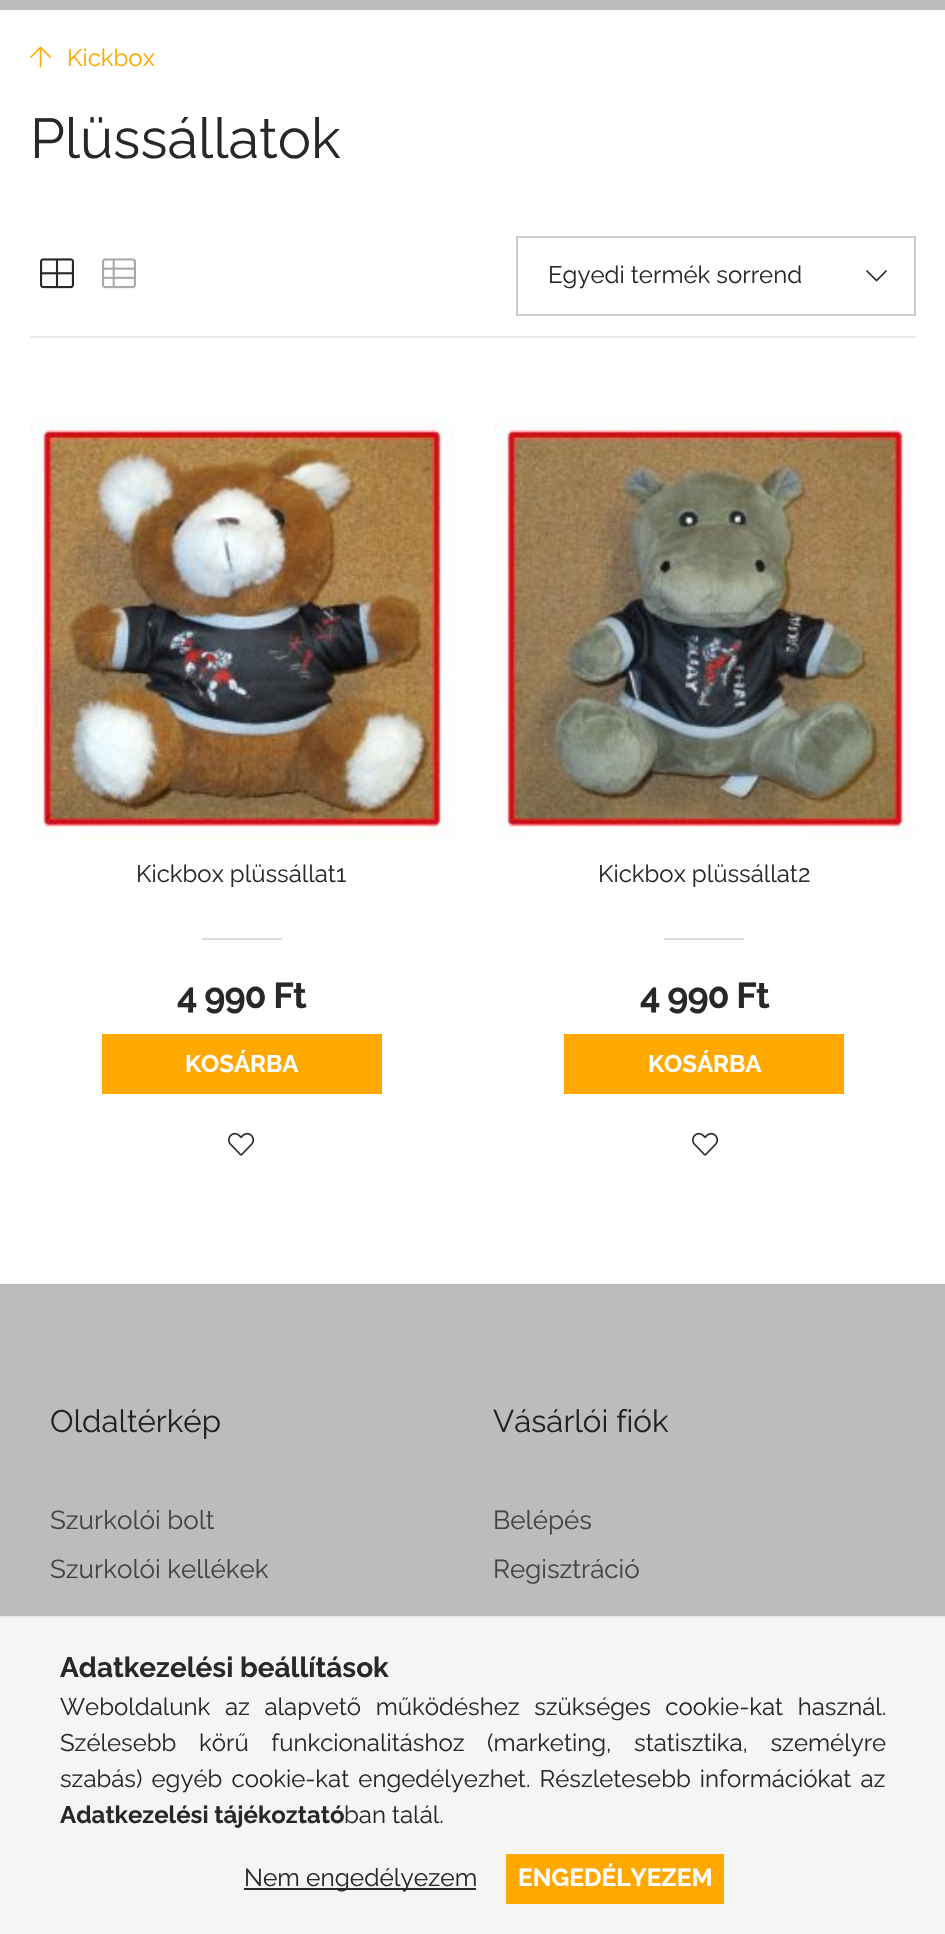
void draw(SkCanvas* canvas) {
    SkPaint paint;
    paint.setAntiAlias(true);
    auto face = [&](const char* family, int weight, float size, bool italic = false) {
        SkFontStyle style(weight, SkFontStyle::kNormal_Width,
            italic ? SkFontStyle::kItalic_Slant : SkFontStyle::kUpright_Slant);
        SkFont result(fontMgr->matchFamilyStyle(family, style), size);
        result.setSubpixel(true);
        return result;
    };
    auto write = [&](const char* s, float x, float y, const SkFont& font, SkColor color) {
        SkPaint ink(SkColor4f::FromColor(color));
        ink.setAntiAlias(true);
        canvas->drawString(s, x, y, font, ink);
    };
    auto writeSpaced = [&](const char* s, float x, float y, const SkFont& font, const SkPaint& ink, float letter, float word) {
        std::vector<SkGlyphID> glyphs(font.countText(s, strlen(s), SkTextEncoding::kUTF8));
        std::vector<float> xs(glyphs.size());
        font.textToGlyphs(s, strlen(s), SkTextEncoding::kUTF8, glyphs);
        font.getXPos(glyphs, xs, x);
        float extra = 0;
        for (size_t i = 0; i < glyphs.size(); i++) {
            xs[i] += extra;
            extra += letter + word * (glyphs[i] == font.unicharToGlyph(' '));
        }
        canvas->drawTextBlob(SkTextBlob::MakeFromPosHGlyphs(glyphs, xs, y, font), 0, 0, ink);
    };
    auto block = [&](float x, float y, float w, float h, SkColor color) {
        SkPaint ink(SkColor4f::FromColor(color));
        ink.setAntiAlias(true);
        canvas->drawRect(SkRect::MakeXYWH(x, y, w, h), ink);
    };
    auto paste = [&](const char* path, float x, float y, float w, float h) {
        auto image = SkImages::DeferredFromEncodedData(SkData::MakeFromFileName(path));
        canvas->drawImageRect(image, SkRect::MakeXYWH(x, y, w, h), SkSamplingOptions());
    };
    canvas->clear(SK_ColorWHITE);
    block(0, 0, 945, 10, SkColorSetRGB(188, 188, 188));
    paste("pic1.png", 30, 46, 21, 22);
    auto kFont1 = face("Raleway", 400, 24);
    write("Kickbox", 67, 66, kFont1, SkColorSetRGB(255, 168, 0));
    auto kFont2 = face("Raleway", 400, 56);
    write("Plüssállatok", 30, 158, kFont2, SkColorSetRGB(40, 40, 40));
    block(30, 336, 886, 2, SkColorSetRGB(234, 234, 234));
    paste("pic2.png", 40, 258, 34, 31);
    paste("pic3.png", 102, 258, 34, 31);
    paint.setStyle(SkPaint::kStroke_Style);
    paint.setStrokeWidth(2);
    paint.setColor(SkColorSetRGB(204, 204, 204));
    canvas->drawRect(SkRect::MakeXYWH(517, 237, 398, 78), paint);
    write("Egyedi termék sorrend", 548, 283, kFont1, SkColorSetRGB(40, 40, 40));
    paste("pic4.png", 866, 270, 21, 12);
    paste("pic5.png", 30, 418, 424, 422);
    write("Kickbox plüssállat1", 136, 882, kFont1, SkColorSetRGB(40, 40, 40));
    block(202, 938, 80, 2, SkColorSetRGB(221, 221, 221));
    auto kFont3 = face("Raleway", 700, 36);
    paint.setStyle(SkPaint::kFill_Style);
    paint.setColor(SkColorSetRGB(40, 40, 40));
    writeSpaced("4 990 Ft", 177, 1008, kFont3, paint, -1, 0);
    block(102, 1034, 280, 60, SkColorSetRGB(255, 168, 0));
    auto kFont4 = face("Raleway", 700, 24);
    write("KOSÁRBA", 185, 1072, kFont4, SK_ColorWHITE);
    paste("pic6.png", 228, 1132, 27, 24);
    paste("pic7.png", 494, 418, 422, 422);
    write("Kickbox plüssállat2", 598, 882, kFont1, SkColorSetRGB(40, 40, 40));
    block(664, 938, 80, 2, SkColorSetRGB(221, 221, 221));
    writeSpaced("4 990 Ft", 640, 1008, kFont3, paint, -1, 0);
    block(564, 1034, 280, 60, SkColorSetRGB(255, 168, 0));
    write("KOSÁRBA", 648, 1072, kFont4, SK_ColorWHITE);
    paste("pic6.png", 692, 1132, 27, 24);
    block(0, 1284, 945, 332, SkColorSetRGB(188, 188, 188));
    auto kFont5 = face("Raleway", 400, 31.25f);
    write("Oldaltérkép", 50, 1432, kFont5, SkColorSetRGB(34, 34, 34));
    auto kFont6 = face("Raleway", 400, 26);
    write("Szurkolói bolt", 50, 1529, kFont6, SkColorSetRGB(68, 68, 68));
    write("Szurkolói kellékek", 50, 1578, kFont6, SkColorSetRGB(68, 68, 68));
    write("Vásárlói fiók", 493, 1432, kFont5, SkColorSetRGB(34, 34, 34));
    write("Belépés", 493, 1529, kFont6, SkColorSetRGB(68, 68, 68));
    write("Regisztráció", 493, 1578, kFont6, SkColorSetRGB(68, 68, 68));
    block(0, 1618, 945, 316, SkColorSetRGB(245, 245, 245));
    block(0, 1616, 945, 2, SkColorSetRGB(234, 234, 234));
    auto kFont7 = face("Raleway", 700, 28);
    write("Adatkezelési beállítások", 60, 1677, kFont7, SkColorSetRGB(40, 40, 40));
    writeSpaced("Weboldalunk az alapvető működéshez szükséges cookie-kat használ.", 60, 1715, kFont1, paint, 0, 8.5f);
    writeSpaced("Szélesebb körű funkcionalitáshoz (marketing, statisztika, személyre", 60, 1751, kFont1, paint, 0, 16.5f);
    writeSpaced("szabás) egyéb cookie-kat engedélyezhet. Részletesebb információkat az", 60, 1787, kFont1, paint, 0, 3);
    write("Adatkezelési tájékoztató", 60, 1823, kFont4, SkColorSetRGB(40, 40, 40));
    write("ban talál.", 344, 1823, kFont1, SkColorSetRGB(40, 40, 40));
    block(244, 1888, 232, 2, SkColorSetRGB(40, 40, 40));
    auto kFont8 = face("Raleway", 400, 24.5f);
    write("Nem engedélyezem", 244, 1886, kFont8, SkColorSetRGB(40, 40, 40));
    block(506, 1854, 218, 50, SkColorSetRGB(255, 168, 0));
    auto kFont9 = face("Raleway", 700, 24.5f);
    write("ENGEDÉLYEZEM", 518, 1886, kFont9, SK_ColorWHITE);
}
